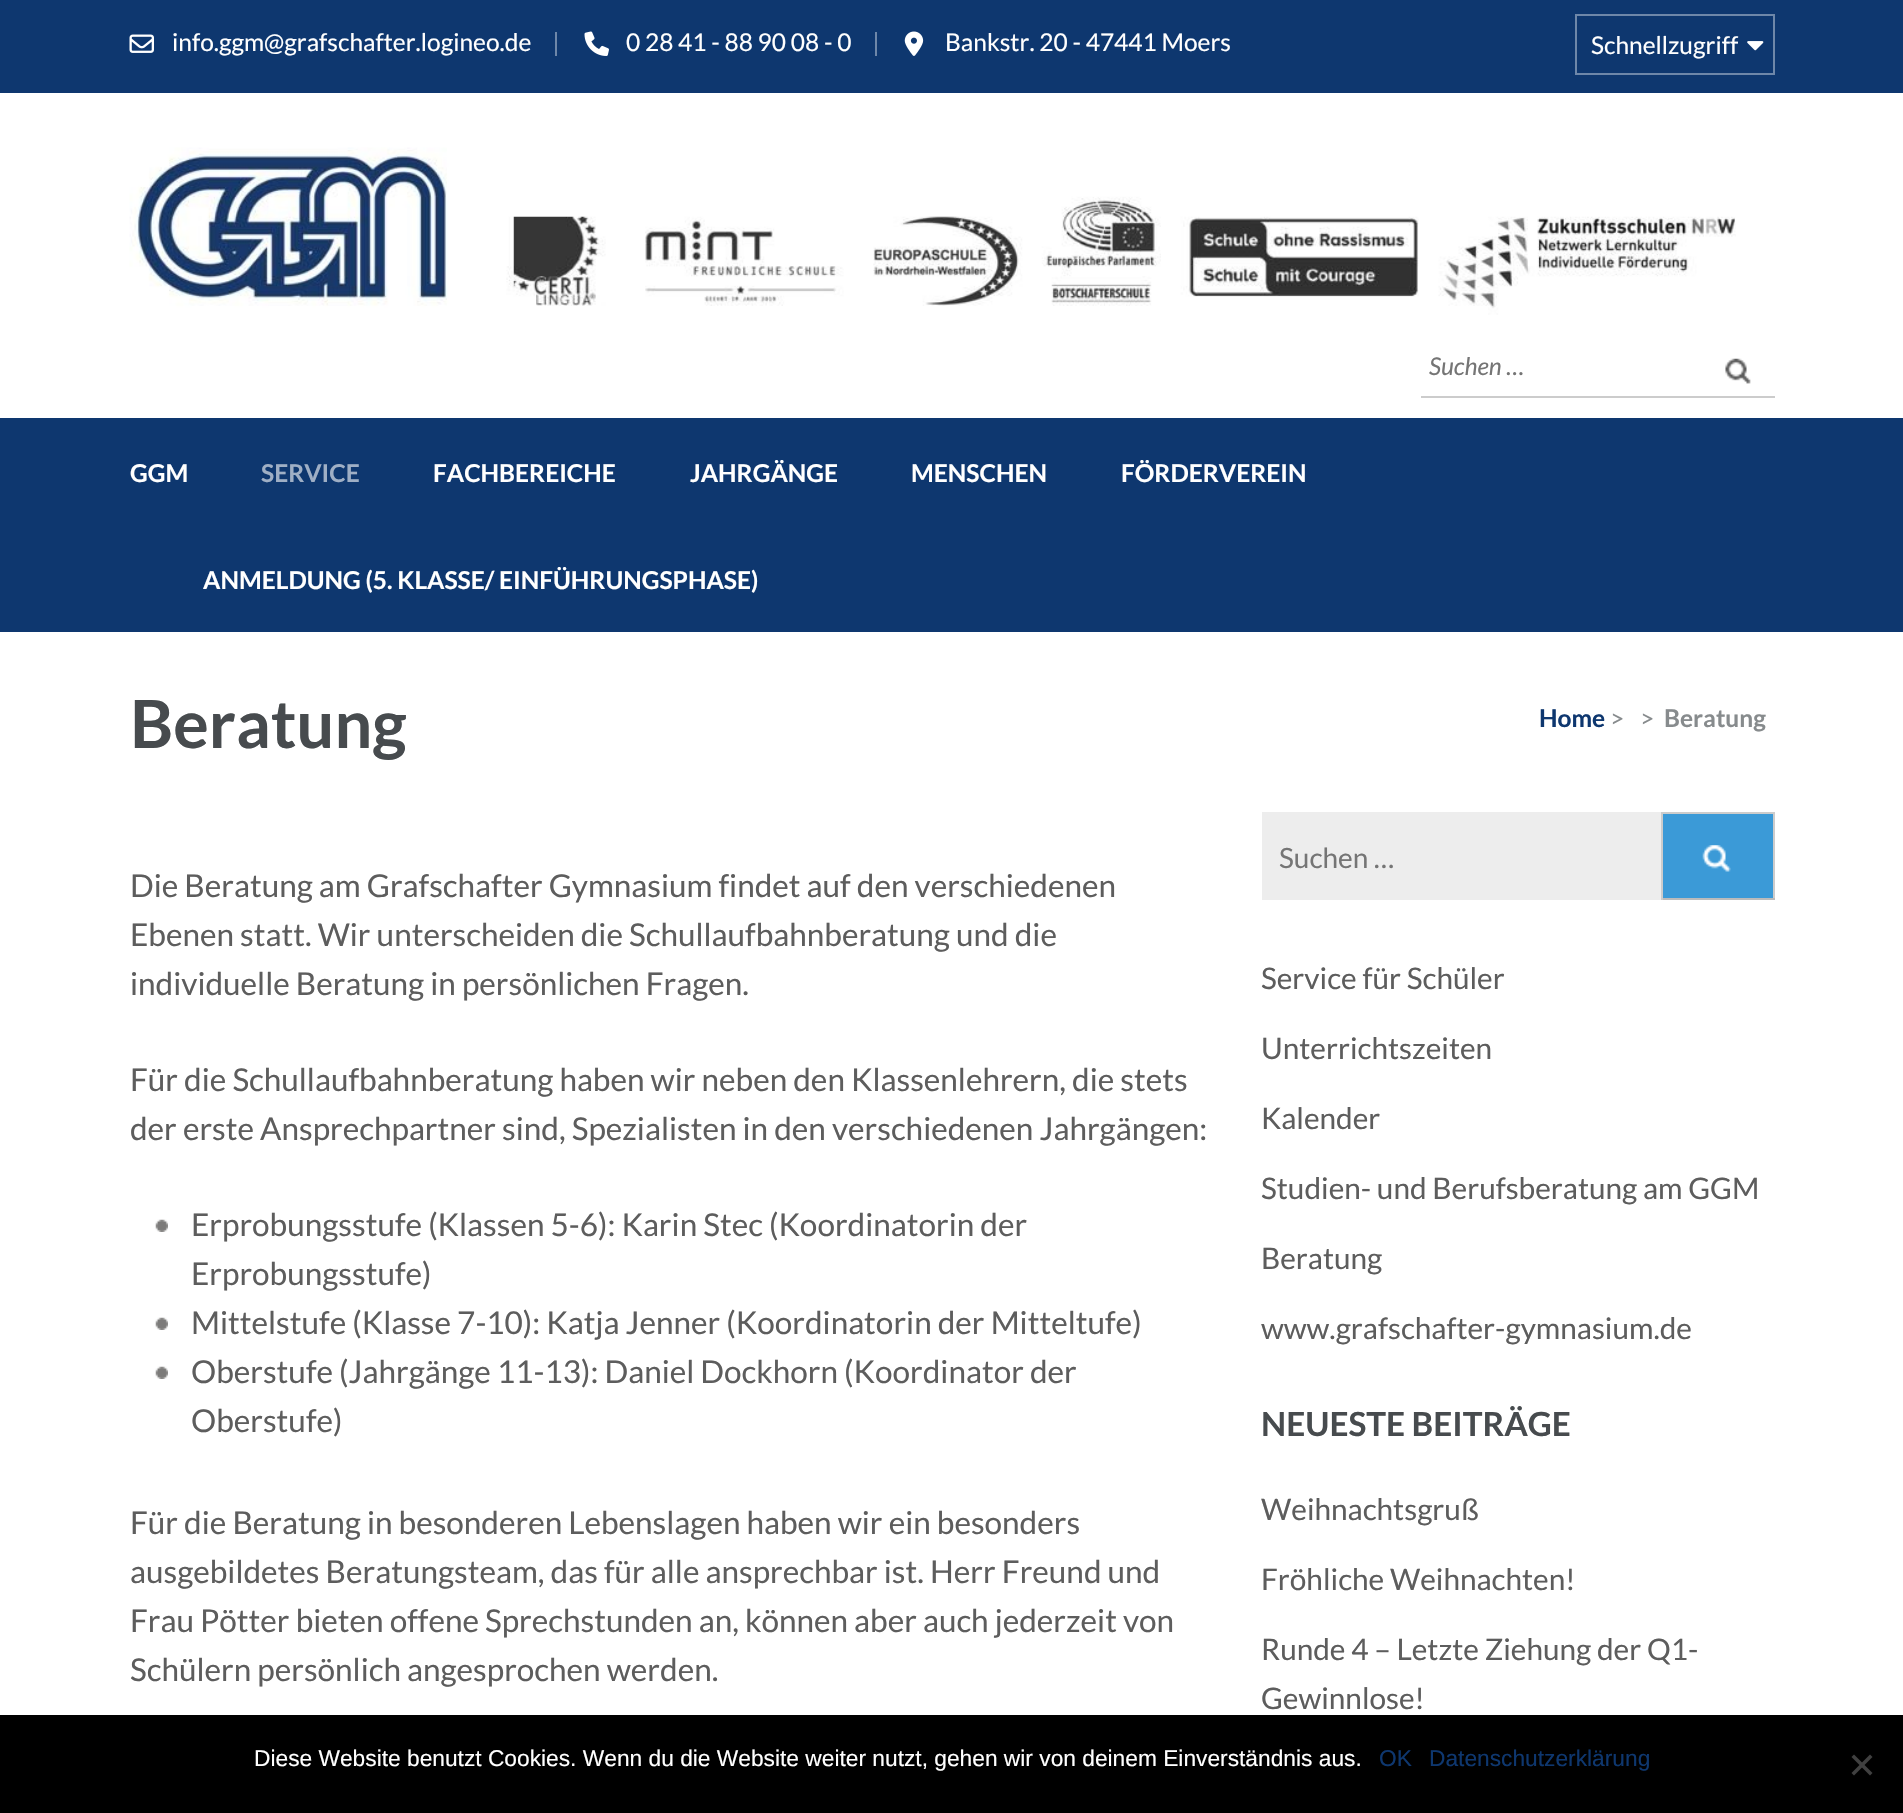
void draw(SkCanvas* canvas) {
    SkPaint paint;
    paint.setAntiAlias(true);
    auto face = [&](const char* family, int weight, float size, bool italic = false) {
        SkFontStyle style(weight, SkFontStyle::kNormal_Width,
            italic ? SkFontStyle::kItalic_Slant : SkFontStyle::kUpright_Slant);
        SkFont result(fontMgr->matchFamilyStyle(family, style), size);
        result.setSubpixel(true);
        return result;
    };
    auto write = [&](const char* s, float x, float y, const SkFont& font, SkColor color) {
        SkPaint ink(SkColor4f::FromColor(color));
        ink.setAntiAlias(true);
        canvas->drawString(s, x, y, font, ink);
    };
    auto block = [&](float x, float y, float w, float h, SkColor color) {
        SkPaint ink(SkColor4f::FromColor(color));
        ink.setAntiAlias(true);
        canvas->drawRect(SkRect::MakeXYWH(x, y, w, h), ink);
    };
    auto paste = [&](const char* path, float x, float y, float w, float h) {
        auto image = SkImages::DeferredFromEncodedData(SkData::MakeFromFileName(path));
        canvas->drawImageRect(image, SkRect::MakeXYWH(x, y, w, h), SkSamplingOptions());
    };
    canvas->clear(SK_ColorWHITE);
    block(0, 0, 1903, 93, SkColorSetRGB(14, 55, 111));
    paste("pic1.png", 129, 34, 25, 19);
    auto kFont1 = face("Lato", 400, 24.5f);
    write("info.ggm@grafschafter.logineo.de", 172, 51, kFont1, SK_ColorWHITE);
    block(555, 32, 2, 24, SkColorSetRGB(110, 135, 169));
    paste("pic2.png", 584, 31, 25, 25);
    write("0 28 41 - 88 90 08 - 0", 626, 51, kFont1, SK_ColorWHITE);
    block(875, 32, 2, 24, SkColorSetRGB(110, 135, 169));
    paste("pic3.png", 904, 31, 20, 25);
    write("Bankstr. 20 - 47441 Moers", 945, 51, kFont1, SK_ColorWHITE);
    paint.setStyle(SkPaint::kStroke_Style);
    paint.setStrokeWidth(2);
    paint.setColor(SkColorSetRGB(110, 135, 169));
    canvas->drawRect(SkRect::MakeXYWH(1576, 15, 198, 59), paint);
    write("Schnellzugriff", 1591, 54, kFont1, SK_ColorWHITE);
    paste("pic4.png", 1747, 41, 17, 10);
    paste("pic5.png", 129, 147, 1607, 168);
    block(1421, 396, 354, 2, SkColorSetRGB(204, 204, 204));
    auto kFont2 = face("Lato", 400, 24.5f, true);
    write("Suchen …", 1429, 375, kFont2, SkColorSetRGB(117, 117, 117));
    paste("pic6.png", 1725, 358, 26, 26);
    block(0, 418, 1903, 214, SkColorSetRGB(14, 55, 111));
    auto kFont3 = face("Lato", 700, 24.5f);
    write("GGM", 130, 482, kFont3, SK_ColorWHITE);
    write("SERVICE", 261, 482, kFont3, SkColorSetRGB(159, 175, 197));
    write("FACHBEREICHE", 433, 482, kFont3, SK_ColorWHITE);
    write("JAHRGÄNGE", 690, 482, kFont3, SK_ColorWHITE);
    write("MENSCHEN", 911, 482, kFont3, SK_ColorWHITE);
    write("FÖRDERVEREIN", 1121, 482, kFont3, SK_ColorWHITE);
    write("ANMELDUNG (5. KLASSE/ EINFÜHRUNGSPHASE)", 203, 589, kFont3, SK_ColorWHITE);
    auto kFont4 = face("Lato", 700, 66.5f);
    write("Beratung", 130, 748, kFont4, SkColorSetRGB(71, 75, 78));
    write("Home", 1539, 727, kFont3, SkColorSetRGB(14, 55, 111));
    write(">", 1610, 727, kFont1, SkColorSetRGB(135, 139, 141));
    write(">", 1640, 727, kFont1, SkColorSetRGB(135, 139, 141));
    write("Beratung", 1664, 727, kFont3, SkColorSetRGB(135, 139, 141));
    auto kFont5 = face("Lato", 400, 31.5f);
    write("Die Beratung am Grafschafter Gymnasium findet auf den verschiedenen", 130, 897, kFont5, SkColorSetRGB(93, 93, 93));
    write("Ebenen statt. Wir unterscheiden die Schullaufbahnberatung und die", 130, 946, kFont5, SkColorSetRGB(93, 93, 93));
    write("individuelle Beratung in persönlichen Fragen.", 130, 995, kFont5, SkColorSetRGB(93, 93, 93));
    write("Für die Schullaufbahnberatung haben wir neben den Klassenlehrern, die stets", 130, 1091, kFont5, SkColorSetRGB(93, 93, 93));
    write("der erste Ansprechpartner sind, Spezialisten in den verschiedenen Jahrgängen:", 130, 1140, kFont5, SkColorSetRGB(93, 93, 93));
    paste("pic7.png", 155, 1219, 13, 13);
    write("Erprobungsstufe (Klassen 5-6): Karin Stec (Koordinatorin der", 191, 1236, kFont5, SkColorSetRGB(93, 93, 93));
    write("Erprobungsstufe)", 191, 1285, kFont5, SkColorSetRGB(93, 93, 93));
    paste("pic7.png", 155, 1317, 13, 13);
    write("Mittelstufe (Klasse 7-10): Katja Jenner (Koordinatorin der Mitteltufe)", 191, 1334, kFont5, SkColorSetRGB(93, 93, 93));
    paste("pic7.png", 155, 1366, 13, 13);
    write("Oberstufe (Jahrgänge 11-13): Daniel Dockhorn (Koordinator der", 191, 1383, kFont5, SkColorSetRGB(93, 93, 93));
    write("Oberstufe)", 191, 1432, kFont5, SkColorSetRGB(93, 93, 93));
    write("Für die Beratung in besonderen Lebenslagen haben wir ein besonders", 130, 1534, kFont5, SkColorSetRGB(93, 93, 93));
    write("ausgebildetes Beratungsteam, das für alle ansprechbar ist. Herr Freund und", 130, 1583, kFont5, SkColorSetRGB(93, 93, 93));
    write("Frau Pötter bieten offene Sprechstunden an, können aber auch jederzeit von", 130, 1632, kFont5, SkColorSetRGB(93, 93, 93));
    write("Schülern persönlich angesprochen werden.", 130, 1681, kFont5, SkColorSetRGB(93, 93, 93));
    block(1262, 812, 399, 88, SkColorSetRGB(237, 237, 237));
    auto kFont6 = face("Lato", 400, 28);
    write("Suchen …", 1279, 868, kFont6, SkColorSetRGB(117, 117, 117));
    block(1663, 814, 110, 84, SkColorSetRGB(59, 154, 215));
    paste("pic8.png", 1702, 845, 29, 27);
    block(1661, 812, 114, 2, SkColorSetRGB(204, 204, 204));
    block(1773, 812, 2, 88, SkColorSetRGB(204, 204, 204));
    block(1661, 898, 114, 2, SkColorSetRGB(187, 187, 187));
    block(1661, 812, 2, 88, SkColorSetRGB(204, 204, 204));
    auto kFont7 = face("Lato", 400, 29.75f);
    write("Service für Schüler", 1261, 989, kFont7, SkColorSetRGB(93, 93, 93));
    write("Unterrichtszeiten", 1261, 1059, kFont7, SkColorSetRGB(93, 93, 93));
    write("Kalender", 1261, 1129, kFont7, SkColorSetRGB(93, 93, 93));
    write("Studien- und Berufsberatung am GGM", 1261, 1199, kFont7, SkColorSetRGB(93, 93, 93));
    write("Beratung", 1261, 1269, kFont7, SkColorSetRGB(93, 93, 93));
    write("www.grafschafter-gymnasium.de", 1261, 1339, kFont7, SkColorSetRGB(93, 93, 93));
    auto kFont8 = face("Lato", 700, 33.25f);
    write("NEUESTE BEITRÄGE", 1261, 1436, kFont8, SkColorSetRGB(71, 75, 78));
    write("Weihnachtsgruß", 1261, 1520, kFont7, SkColorSetRGB(93, 93, 93));
    write("Fröhliche Weihnachten!", 1261, 1590, kFont7, SkColorSetRGB(93, 93, 93));
    write("Runde 4 – Letzte Ziehung der Q1-", 1261, 1660, kFont7, SkColorSetRGB(93, 93, 93));
    write("Gewinnlose!", 1261, 1709, kFont7, SkColorSetRGB(93, 93, 93));
    block(0, 1715, 1903, 98, SK_ColorBLACK);
    auto kFont9 = face("Liberation Sans", 400, 22.75f);
    write("Diese Website benutzt Cookies. Wenn du die Website weiter nutzt, gehen wir von deinem Einverständnis aus.", 254, 1766, kFont9, SK_ColorWHITE);
    write("OK", 1379, 1766, kFont9, SkColorSetRGB(14, 55, 111));
    write("Datenschutzerklärung", 1429, 1766, kFont9, SkColorSetRGB(14, 55, 111));
    paint.setStyle(SkPaint::kFill_Style);
    paint.setColor(SkColorSetRGB(64, 64, 64));
    canvas->drawPath(SkPathBuilder().moveTo(1870, 1754.5f).lineTo(1872.5f, 1757).lineTo(1854, 1775.5f).lineTo(1851.5f, 1773).close().detach(), paint);
    canvas->drawPath(SkPathBuilder().moveTo(1851.5f, 1757).lineTo(1854, 1754.5f).lineTo(1872.5f, 1773).lineTo(1870, 1775.5f).close().detach(), paint);
}
